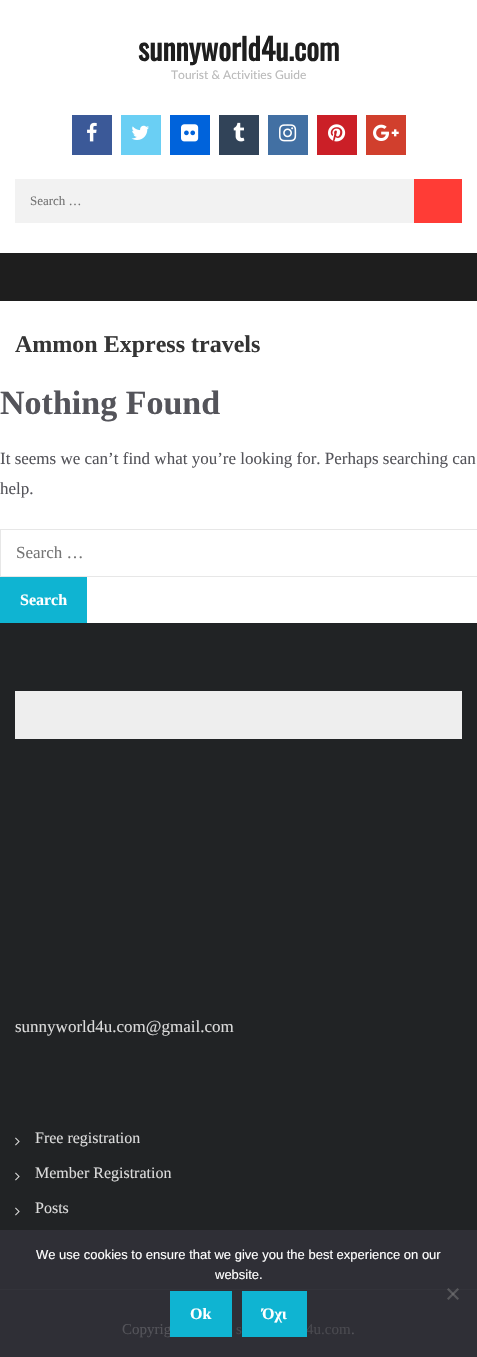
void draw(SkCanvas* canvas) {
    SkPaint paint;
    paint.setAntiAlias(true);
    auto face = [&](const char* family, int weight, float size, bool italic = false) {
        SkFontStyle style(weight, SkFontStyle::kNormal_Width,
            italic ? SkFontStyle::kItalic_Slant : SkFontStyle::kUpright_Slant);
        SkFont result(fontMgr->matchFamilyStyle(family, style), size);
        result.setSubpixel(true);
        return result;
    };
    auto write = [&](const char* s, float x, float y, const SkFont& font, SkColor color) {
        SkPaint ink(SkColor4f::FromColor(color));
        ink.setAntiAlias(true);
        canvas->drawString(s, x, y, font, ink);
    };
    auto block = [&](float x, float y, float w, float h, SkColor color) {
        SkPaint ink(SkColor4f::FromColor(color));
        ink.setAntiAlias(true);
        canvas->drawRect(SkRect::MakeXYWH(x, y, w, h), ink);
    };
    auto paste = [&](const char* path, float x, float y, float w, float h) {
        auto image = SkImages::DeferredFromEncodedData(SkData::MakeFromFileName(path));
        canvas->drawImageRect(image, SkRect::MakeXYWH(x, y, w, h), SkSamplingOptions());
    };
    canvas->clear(SK_ColorWHITE);
    auto kFont1 = face("Oswald", 700, 30);
    write("sunnyworld4u.com", 138, 61, kFont1, SkColorSetRGB(30, 30, 30));
    auto kFont2 = face("Lato", 400, 12);
    write("Tourist & Activities Guide", 171, 79, kFont2, SkColorSetRGB(186, 186, 186));
    block(72, 115, 40, 40, SkColorSetRGB(59, 89, 152));
    paste("pic1.png", 87, 122, 10, 20);
    block(121, 115, 40, 40, SkColorSetRGB(106, 207, 244));
    paste("pic2.png", 131, 125, 18, 15);
    block(170, 115, 40, 40, SkColorSetRGB(0, 99, 219));
    paste("pic3.png", 181, 124, 18, 18);
    block(219, 115, 40, 40, SkColorSetRGB(49, 67, 88));
    paste("pic4.png", 233, 122, 12, 20);
    block(268, 115, 40, 40, SkColorSetRGB(66, 112, 163));
    paste("pic5.png", 279, 124, 18, 18);
    block(317, 115, 40, 40, SkColorSetRGB(203, 31, 39));
    paste("pic6.png", 328, 124, 18, 18);
    block(366, 115, 40, 40, SkColorSetRGB(209, 63, 45));
    paste("pic7.png", 373, 124, 26, 17);
    block(15, 179, 399, 44, SkColorSetRGB(242, 242, 242));
    auto kFont3 = face("Liberation Serif", 400, 13);
    write("Search …", 30, 205, kFont3, SkColorSetRGB(117, 117, 117));
    block(414, 179, 48, 44, SkColorSetRGB(255, 60, 54));
    block(0, 253, 477, 48, SkColorSetRGB(30, 30, 30));
    auto kFont4 = face("Liberation Serif", 700, 24);
    write("Ammon Express travels", 15, 352, kFont4, SkColorSetRGB(53, 53, 53));
    auto kFont5 = face("Liberation Serif", 700, 34);
    write("Nothing Found", 0, 414, kFont5, SkColorSetRGB(84, 84, 90));
    auto kFont6 = face("Liberation Serif", 400, 17);
    write("It seems we can’t find what you’re looking for. Perhaps searching can", 0, 464, kFont6, SkColorSetRGB(84, 84, 90));
    write("help.", 0, 494, kFont6, SkColorSetRGB(84, 84, 90));
    paint.setStyle(SkPaint::kStroke_Style);
    paint.setStrokeWidth(1);
    paint.setColor(SkColorSetRGB(231, 231, 231));
    canvas->drawRect(SkRect::MakeXYWH(0.5f, 529.5f, 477, 47), paint);
    write("Search …", 16, 558, kFont6, SkColorSetRGB(117, 117, 117));
    block(0, 577, 87, 46, SkColorSetRGB(15, 180, 210));
    auto kFont7 = face("Liberation Serif", 700, 16);
    write("Search", 20, 605, kFont7, SK_ColorWHITE);
    block(0, 623, 477, 607, SkColorSetRGB(33, 35, 37));
    block(0, 1230, 477, 127, SkColorSetRGB(47, 47, 54));
    block(0, 1289, 477, 1, SkColorSetRGB(51, 51, 58));
    block(15, 691, 447, 48, SkColorSetRGB(238, 238, 238));
    write("sunnyworld4u.com@gmail.com", 15, 1032, kFont6, SkColorSetRGB(219, 219, 219));
    paste("pic8.png", 15, 1137, 5, 9);
    auto kFont8 = face("Liberation Serif", 400, 16);
    write("Free registration", 35, 1143, kFont8, SkColorSetRGB(219, 219, 219));
    paste("pic8.png", 15, 1172, 5, 9);
    write("Member Registration", 35, 1178, kFont8, SkColorSetRGB(219, 219, 219));
    paste("pic8.png", 15, 1207, 5, 9);
    write("Posts", 35, 1213, kFont8, SkColorSetRGB(219, 219, 219));
    auto kFont9 = face("Liberation Serif", 400, 15);
    write("Copyrig", 122, 1334, kFont9, SkColorSetRGB(84, 84, 90));
    write("s", 236, 1334, kFont9, SkColorSetRGB(73, 73, 79));
    write("4u.com", 306, 1334, kFont9, SkColorSetRGB(73, 73, 79));
    write(".", 351, 1334, kFont9, SkColorSetRGB(84, 84, 90));
    auto kFont10 = face("Liberation Sans", 400, 13);
    write("We use cookies to ensure that we give you the best experience on our", 36, 1259, kFont10, SK_ColorWHITE);
    write("website.", 215, 1279, kFont10, SK_ColorWHITE);
    paint.setStyle(SkPaint::kFill_Style);
    paint.setColor(SkColorSetARGB(128, 128, 128, 128));
    canvas->drawPath(SkPathBuilder().moveTo(457.5f, 1288).lineTo(459, 1289.5f).lineTo(448.5f, 1300).lineTo(447, 1298.5f).close().detach(), paint);
    canvas->drawPath(SkPathBuilder().moveTo(447, 1289.5f).lineTo(448.5f, 1288).lineTo(459, 1298.5f).lineTo(457.5f, 1300).close().detach(), paint);
    block(170, 1291, 62, 46, SkColorSetRGB(15, 180, 210));
    write("Ok", 190, 1319, kFont7, SK_ColorWHITE);
    block(242, 1291, 65, 46, SkColorSetRGB(15, 180, 210));
    write("Όχι", 262, 1319, kFont7, SK_ColorWHITE);
}
